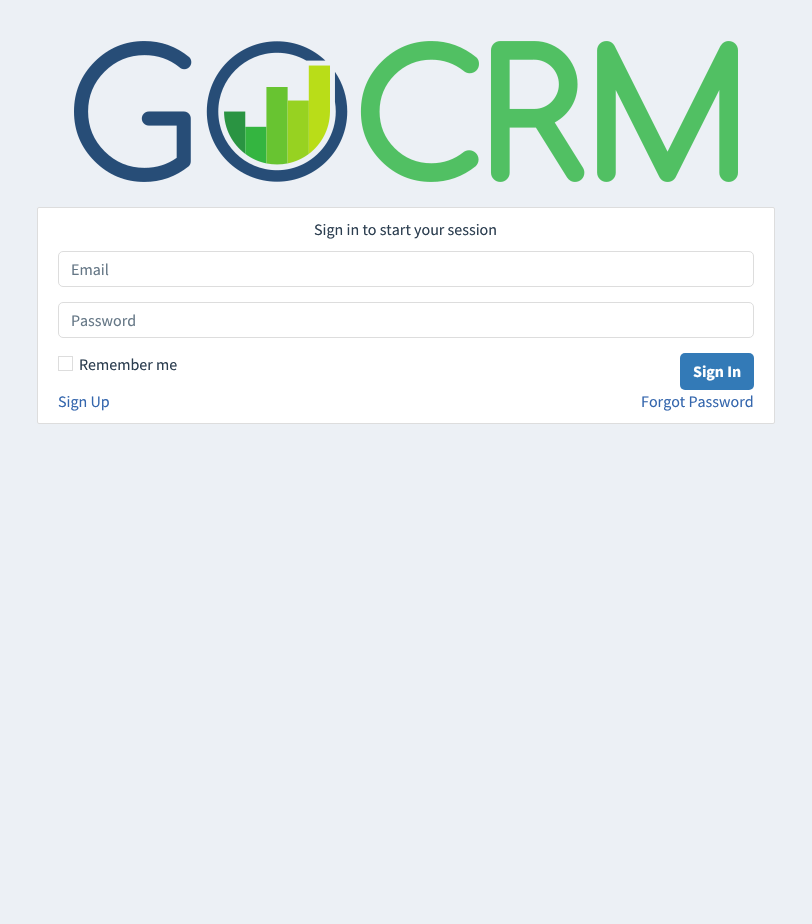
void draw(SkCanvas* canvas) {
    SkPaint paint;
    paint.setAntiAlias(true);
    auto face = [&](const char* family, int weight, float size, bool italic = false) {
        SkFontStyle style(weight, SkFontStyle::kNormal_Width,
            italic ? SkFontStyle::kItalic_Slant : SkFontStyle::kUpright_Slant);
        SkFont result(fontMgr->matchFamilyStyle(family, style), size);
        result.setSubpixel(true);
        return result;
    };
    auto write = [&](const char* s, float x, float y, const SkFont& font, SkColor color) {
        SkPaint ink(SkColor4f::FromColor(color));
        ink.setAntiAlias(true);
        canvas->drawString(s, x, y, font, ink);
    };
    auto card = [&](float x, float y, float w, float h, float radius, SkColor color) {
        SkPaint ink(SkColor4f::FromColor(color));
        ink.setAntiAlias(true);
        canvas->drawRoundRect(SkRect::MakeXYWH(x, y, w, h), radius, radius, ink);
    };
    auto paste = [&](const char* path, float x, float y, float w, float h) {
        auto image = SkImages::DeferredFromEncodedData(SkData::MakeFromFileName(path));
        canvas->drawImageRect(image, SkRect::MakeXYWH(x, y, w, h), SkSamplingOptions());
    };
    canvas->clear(SkColorSetRGB(236, 240, 245));
    paste("pic1.png", 74, 41, 664, 141);
    paint.setColor(SK_ColorWHITE);
    canvas->drawRoundRect(SkRect::MakeXYWH(37.5f, 207.5f, 737, 216), 1.5f, 1.5f, paint);
    paint.setStyle(SkPaint::kStroke_Style);
    paint.setStrokeWidth(1);
    paint.setColor(SkColorSetRGB(221, 221, 221));
    canvas->drawRoundRect(SkRect::MakeXYWH(37.5f, 207.5f, 737, 216), 1.5f, 1.5f, paint);
    auto kFont1 = face("Source Sans Pro", 400, 16);
    write("Sign in to start your session", 314, 235, kFont1, SkColorSetRGB(44, 62, 80));
    canvas->drawRoundRect(SkRect::MakeXYWH(58.5f, 251.5f, 695, 35), 4.5f, 4.5f, paint);
    write("Email", 71, 275, kFont1, SkColorSetRGB(101, 119, 134));
    canvas->drawRoundRect(SkRect::MakeXYWH(58.5f, 302.5f, 695, 35), 4.5f, 4.5f, paint);
    write("Password", 71, 326, kFont1, SkColorSetRGB(101, 119, 134));
    canvas->drawRect(SkRect::MakeXYWH(58.5f, 356.5f, 14, 14), paint);
    write("Remember me", 79, 370, kFont1, SkColorSetRGB(44, 62, 80));
    card(680, 353, 74, 37, 5, SkColorSetRGB(51, 122, 183));
    auto kFont2 = face("Source Sans Pro", 700, 16);
    write("Sign In", 693, 377, kFont2, SK_ColorWHITE);
    write("Sign Up", 58, 407, kFont1, SkColorSetRGB(52, 102, 173));
    write("Forgot Password", 641, 407, kFont1, SkColorSetRGB(52, 102, 173));
}
